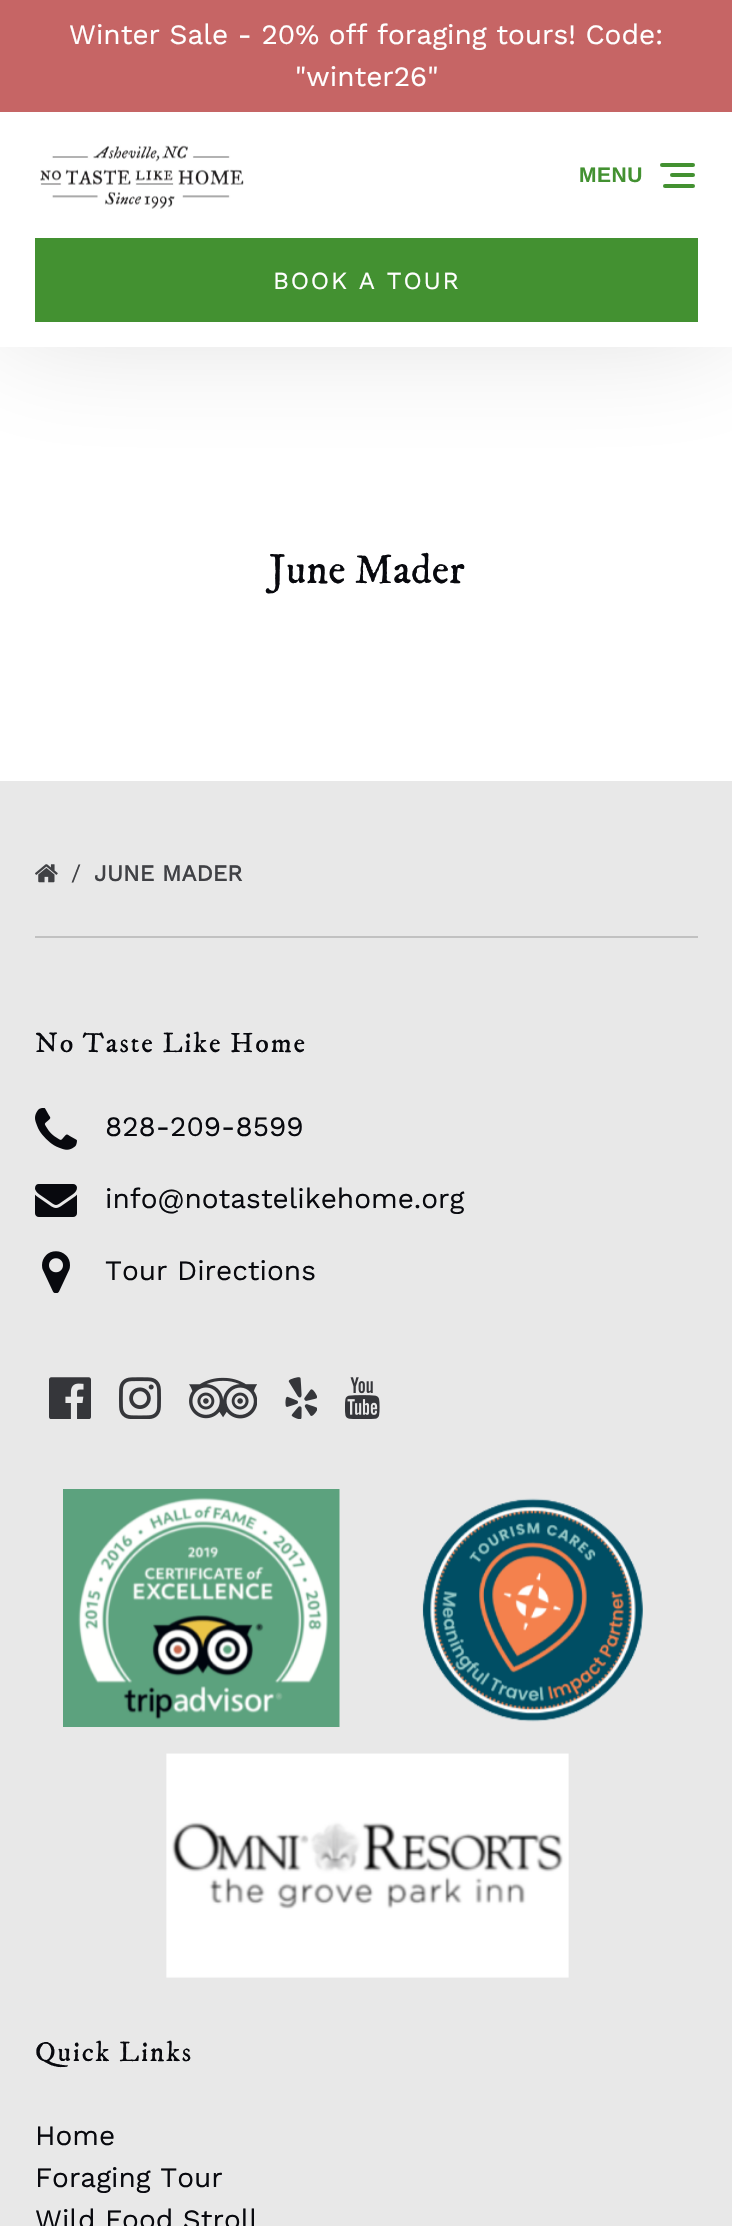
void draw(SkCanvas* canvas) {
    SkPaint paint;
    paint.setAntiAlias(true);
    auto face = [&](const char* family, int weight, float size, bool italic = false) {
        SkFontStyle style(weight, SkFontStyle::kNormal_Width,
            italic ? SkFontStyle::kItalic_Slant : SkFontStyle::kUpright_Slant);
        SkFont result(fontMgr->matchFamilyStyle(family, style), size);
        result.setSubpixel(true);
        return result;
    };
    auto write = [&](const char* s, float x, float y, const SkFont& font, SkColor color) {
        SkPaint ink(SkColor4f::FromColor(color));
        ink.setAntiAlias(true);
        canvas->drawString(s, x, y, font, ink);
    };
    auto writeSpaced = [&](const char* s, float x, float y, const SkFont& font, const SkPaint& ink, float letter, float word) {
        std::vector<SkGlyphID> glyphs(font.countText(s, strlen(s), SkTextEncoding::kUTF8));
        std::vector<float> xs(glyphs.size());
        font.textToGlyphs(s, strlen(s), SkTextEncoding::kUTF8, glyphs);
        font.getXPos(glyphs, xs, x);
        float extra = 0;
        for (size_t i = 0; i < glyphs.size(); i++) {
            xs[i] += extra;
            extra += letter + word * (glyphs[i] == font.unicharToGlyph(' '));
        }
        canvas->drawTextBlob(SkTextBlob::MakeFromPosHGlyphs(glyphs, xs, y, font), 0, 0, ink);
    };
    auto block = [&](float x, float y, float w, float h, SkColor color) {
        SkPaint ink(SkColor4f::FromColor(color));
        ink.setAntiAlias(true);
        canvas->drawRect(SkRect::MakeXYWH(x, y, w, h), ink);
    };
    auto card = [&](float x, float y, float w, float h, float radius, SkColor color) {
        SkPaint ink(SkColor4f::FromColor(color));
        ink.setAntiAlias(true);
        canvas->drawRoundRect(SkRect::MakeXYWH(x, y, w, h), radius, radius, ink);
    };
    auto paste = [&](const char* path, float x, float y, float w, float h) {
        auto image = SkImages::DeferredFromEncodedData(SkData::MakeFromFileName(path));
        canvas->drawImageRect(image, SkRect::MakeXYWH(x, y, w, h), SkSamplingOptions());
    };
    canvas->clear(SK_ColorWHITE);
    paint.setColor(SkColorSetARGB(38, 8, 9, 14));
    paint.setMaskFilter(SkMaskFilter::MakeBlur(kNormal_SkBlurStyle, 65.5f));
    canvas->drawRect(SkRect::MakeXYWH(0, -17, 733, 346), paint);
    paint.setMaskFilter(nullptr);
    block(0, 112, 732, 235, SK_ColorWHITE);
    block(0, 0, 732, 112, SkColorSetRGB(198, 101, 101));
    auto kFont1 = face("Work Sans", 400, 28);
    write("Winter Sale - 20% off foraging tours! Code:", 69, 44, kFont1, SK_ColorWHITE);
    write("\"winter26\"", 295, 86, kFont1, SK_ColorWHITE);
    paste("pic1.png", 40, 145, 204, 64);
    auto kFont2 = face("Liberation Sans", 700, 21);
    paint.setColor(SkColorSetRGB(67, 145, 49));
    writeSpaced("MENU", 579, 182, kFont2, paint, 0.5f, 0);
    card(670, 173, 25, 4, 2, SkColorSetRGB(67, 145, 49));
    card(660, 163, 35, 4, 2, SkColorSetRGB(67, 145, 49));
    card(663, 184, 32, 4, 2, SkColorSetRGB(67, 145, 49));
    block(35, 238, 663, 84, SkColorSetRGB(67, 145, 49));
    auto kFont3 = face("Work Sans", 400, 24.5f);
    paint.setColor(SK_ColorWHITE);
    writeSpaced("BOOK A TOUR", 273, 289, kFont3, paint, 1.75f, 0);
    auto kFont4 = face("IM FELL DW Pica", 400, 42);
    write("June Mader", 269, 583, kFont4, SkColorSetRGB(8, 9, 14));
    block(0, 781, 732, 1445, SkColorSetRGB(232, 232, 232));
    paste("pic2.png", 35, 864, 23, 19);
    auto kFont5 = face("Work Sans", 400, 22.75f);
    write("/", 71, 881, kFont5, SkColorSetRGB(64, 65, 69));
    auto kFont6 = face("Work Sans", 700, 22.75f);
    write("JUNE MADER", 94, 881, kFont6, SkColorSetRGB(64, 65, 69));
    block(35, 936, 663, 2, SkColorSetRGB(193, 193, 193));
    auto kFont7 = face("IM FELL DW Pica", 400, 28);
    paint.setColor(SkColorSetRGB(8, 9, 14));
    writeSpaced("No Taste Like Home", 35, 1052, kFont7, paint, 1.75f, 0);
    paste("pic3.png", 35, 1108, 42, 42);
    write("828-209-8599", 105, 1136, kFont1, SkColorSetRGB(8, 9, 14));
    paste("pic4.png", 35, 1184, 42, 33);
    write("info@notastelikehome.org", 105, 1208, kFont1, SkColorSetRGB(8, 9, 14));
    paste("pic5.png", 42, 1251, 28, 42);
    write("Tour Directions", 105, 1280, kFont1, SkColorSetRGB(8, 9, 14));
    paste("pic6.png", 49, 1377, 42, 42);
    paste("pic7.png", 119, 1377, 42, 42);
    paste("pic8.png", 189, 1377, 68, 42);
    paste("pic9.png", 285, 1377, 32, 42);
    paste("pic10.png", 345, 1377, 35, 42);
    paste("pic11.png", 63, 1489, 277, 238);
    paste("pic12.png", 422, 1498, 221, 224);
    paste("pic13.png", 166, 1753, 403, 225);
    writeSpaced("Quick Links", 35, 2061, kFont7, paint, 1.75f, 0);
    write("Home", 35, 2145, kFont1, SkColorSetRGB(8, 9, 14));
    write("Foraging Tour", 35, 2187, kFont1, SkColorSetRGB(8, 9, 14));
    write("Wild Food Stroll", 35, 2229, kFont1, SkColorSetRGB(8, 9, 14));
}
